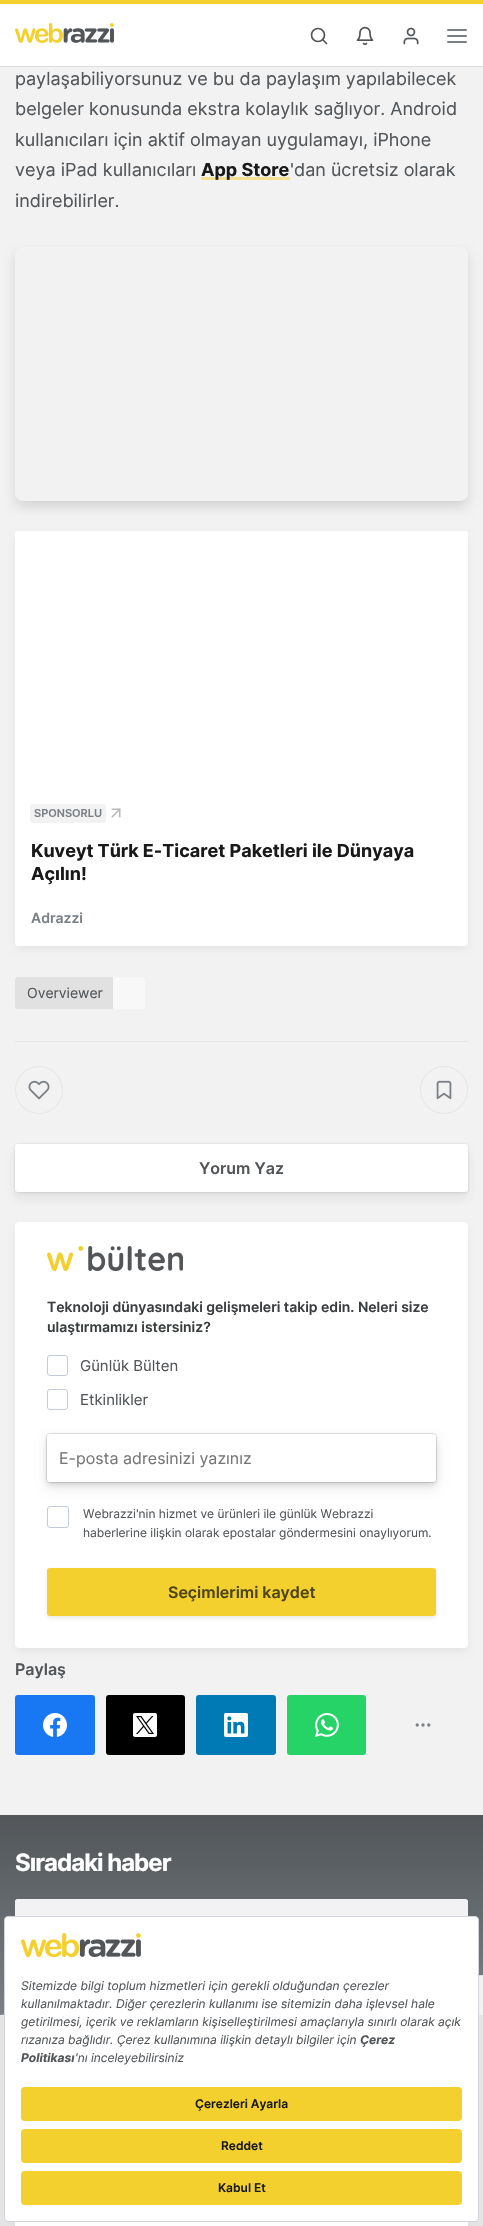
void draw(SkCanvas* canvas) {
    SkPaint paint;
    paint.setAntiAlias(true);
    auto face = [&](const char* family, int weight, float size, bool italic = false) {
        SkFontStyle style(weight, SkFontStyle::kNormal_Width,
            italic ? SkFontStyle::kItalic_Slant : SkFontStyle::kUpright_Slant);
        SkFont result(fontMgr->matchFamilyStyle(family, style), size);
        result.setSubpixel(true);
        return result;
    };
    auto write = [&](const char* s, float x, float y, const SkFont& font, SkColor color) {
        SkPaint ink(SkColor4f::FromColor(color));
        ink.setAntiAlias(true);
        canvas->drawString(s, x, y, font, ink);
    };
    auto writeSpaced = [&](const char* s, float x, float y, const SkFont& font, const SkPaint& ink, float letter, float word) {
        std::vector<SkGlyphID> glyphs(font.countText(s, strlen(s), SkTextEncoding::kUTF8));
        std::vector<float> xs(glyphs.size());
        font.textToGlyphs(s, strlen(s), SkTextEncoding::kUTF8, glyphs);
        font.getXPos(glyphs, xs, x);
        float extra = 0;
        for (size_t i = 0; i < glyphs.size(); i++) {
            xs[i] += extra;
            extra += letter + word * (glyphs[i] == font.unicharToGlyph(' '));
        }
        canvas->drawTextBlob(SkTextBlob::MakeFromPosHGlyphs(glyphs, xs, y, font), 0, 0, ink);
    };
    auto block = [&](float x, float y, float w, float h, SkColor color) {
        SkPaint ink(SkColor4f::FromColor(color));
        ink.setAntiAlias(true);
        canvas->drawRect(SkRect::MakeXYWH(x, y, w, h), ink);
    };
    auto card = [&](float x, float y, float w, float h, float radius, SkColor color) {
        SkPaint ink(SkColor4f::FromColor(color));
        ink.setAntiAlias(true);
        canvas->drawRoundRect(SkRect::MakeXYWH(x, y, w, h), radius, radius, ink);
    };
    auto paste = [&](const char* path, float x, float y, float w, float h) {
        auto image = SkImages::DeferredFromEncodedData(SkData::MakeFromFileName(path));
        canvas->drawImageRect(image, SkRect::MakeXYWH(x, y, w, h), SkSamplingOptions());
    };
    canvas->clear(SkColorSetRGB(242, 242, 243));
    block(0, 66, 483, 1, SkColorSetRGB(220, 221, 223));
    block(0, 4, 483, 62, SK_ColorWHITE);
    block(0, 0, 483, 4, SkColorSetRGB(243, 208, 46));
    paste("pic1.png", 15, 23, 99, 20);
    card(447, 29, 20, 2, 1, SkColorSetRGB(122, 128, 133));
    card(447, 35, 20, 2, 1, SkColorSetRGB(122, 128, 133));
    card(447, 41, 20, 2, 1, SkColorSetRGB(122, 128, 133));
    paint.setStyle(SkPaint::kStroke_Style);
    paint.setStrokeWidth(1.7f);
    paint.setColor(SkColorSetRGB(82, 86, 89));
    canvas->drawCircle(318, 35, 6.5f, paint);
    paint.setStrokeCap(SkPaint::kRound_Cap);
    paint.setStrokeJoin(SkPaint::kRound_Join);
    canvas->drawPath(SkPathBuilder().moveTo(326.5f, 43.5f).lineTo(323, 40).detach(), paint);
    paste("pic2.png", 356, 26, 18, 20);
    paste("pic3.png", 403, 27, 16, 18);
    auto kFont1 = face("Inter", 400, 18);
    write("paylaşabiliyorsunuz ve bu da paylaşım yapılabilecek", 15, 85, kFont1, SkColorSetRGB(82, 86, 89));
    write("belgeler konusunda ekstra kolaylık sağlıyor. Android", 15, 115, kFont1, SkColorSetRGB(82, 86, 89));
    write("kullanıcıları için aktif olmayan uygulamayı, iPhone", 15, 146, kFont1, SkColorSetRGB(82, 86, 89));
    write("veya iPad kullanıcıları", 15, 176, kFont1, SkColorSetRGB(82, 86, 89));
    block(201, 177, 89, 3, SkColorSetRGB(243, 225, 145));
    auto kFont2 = face("Inter", 700, 18);
    write("App Store", 201, 176, kFont2, SkColorSetRGB(25, 25, 26));
    write("'dan ücretsiz olarak", 290, 176, kFont1, SkColorSetRGB(82, 86, 89));
    write("indirebilirler.", 15, 207, kFont1, SkColorSetRGB(82, 86, 89));
    canvas->save();
    canvas->clipPath(SkPathBuilder(SkPathFillType::kEvenOdd).moveTo(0, 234).lineTo(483, 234).lineTo(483, 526).lineTo(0, 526).close().moveTo(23, 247).lineTo(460, 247).cubicTo(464.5f, 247, 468, 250.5f, 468, 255).lineTo(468, 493).cubicTo(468, 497.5f, 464.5f, 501, 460, 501).lineTo(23, 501).cubicTo(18.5f, 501, 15, 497.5f, 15, 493).lineTo(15, 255).cubicTo(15, 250.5f, 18.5f, 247, 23, 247).close().detach(), true);
    paint.setStyle(SkPaint::kFill_Style);
    paint.setColor(SkColorSetARGB(31, 0, 0, 0));
    paint.setMaskFilter(SkMaskFilter::MakeBlur(kNormal_SkBlurStyle, 6));
    canvas->drawRoundRect(SkRect::MakeXYWH(15, 253, 453, 254), 8, 8, paint);
    paint.setMaskFilter(nullptr);
    canvas->restore();
    paint.setColor(SkColorSetARGB(20, 0, 0, 0));
    paint.setMaskFilter(SkMaskFilter::MakeBlur(kNormal_SkBlurStyle, 4));
    canvas->drawRoundRect(SkRect::MakeXYWH(17, 537, 449, 411), 1, 1, paint);
    paint.setMaskFilter(nullptr);
    card(15, 531, 453, 415, 3, SK_ColorWHITE);
    card(30, 804, 76, 19, 3, SkColorSetRGB(242, 242, 243));
    auto kFont3 = face("Inter", 600, 11);
    write("SPONSORLU", 34, 817, kFont3, SkColorSetRGB(122, 128, 133));
    paste("pic4.png", 111, 808, 10, 10);
    write("Kuveyt Türk E-Ticaret Paketleri ile Dünyaya", 31, 857, kFont2, SkColorSetRGB(25, 25, 26));
    write("Açılın!", 31, 880, kFont2, SkColorSetRGB(25, 25, 26));
    auto kFont4 = face("Inter", 600, 14);
    write("Adrazzi", 31, 923, kFont4, SkColorSetRGB(122, 128, 133));
    card(15, 977, 100, 32, 3, SkColorSetRGB(225, 225, 226));
    auto kFont5 = face("Inter", 400, 14);
    write("Overviewer", 27, 998, kFont5, SkColorSetRGB(82, 86, 89));
    paint.setColor(SkColorSetRGB(248, 248, 248));
    canvas->drawPath(SkPathBuilder().moveTo(113, 977).lineTo(142, 977).cubicTo(143.5f, 977, 145, 978.5f, 145, 980).lineTo(145, 1006).cubicTo(145, 1007.5f, 143.5f, 1009, 142, 1009).lineTo(113, 1009).close().detach(), paint);
    block(15, 1041, 453, 1, SkColorSetRGB(229, 229, 230));
    paste("pic5.png", 28, 1080, 22, 20);
    paint.setStyle(SkPaint::kStroke_Style);
    paint.setStrokeWidth(1);
    paint.setStrokeCap(SkPaint::kButt_Cap);
    paint.setStrokeJoin(SkPaint::kMiter_Join);
    paint.setColor(SkColorSetRGB(229, 229, 230));
    canvas->drawCircle(39, 1090, 23.5f, paint);
    paste("pic6.png", 436, 1080, 16, 20);
    canvas->drawCircle(444, 1090, 23.5f, paint);
    paint.setColor(SkColorSetRGB(233, 233, 234));
    canvas->drawRoundRect(SkRect::MakeXYWH(14.5f, 1143.5f, 454, 49), 3.5f, 3.5f, paint);
    paint.setStyle(SkPaint::kFill_Style);
    paint.setColor(SkColorSetARGB(20, 25, 25, 26));
    paint.setMaskFilter(SkMaskFilter::MakeBlur(kNormal_SkBlurStyle, 2));
    canvas->drawRoundRect(SkRect::MakeXYWH(16, 1147, 451, 46), 2, 2, paint);
    paint.setMaskFilter(nullptr);
    paint.setMaskFilter(SkMaskFilter::MakeBlur(kNormal_SkBlurStyle, 6));
    canvas->drawRoundRect(SkRect::MakeXYWH(15, 1150, 453, 48), 3, 3, paint);
    paint.setMaskFilter(nullptr);
    card(15, 1144, 453, 48, 3, SK_ColorWHITE);
    auto kFont6 = face("Inter", 600, 16);
    write("Yorum Yaz", 199, 1174, kFont6, SkColorSetRGB(82, 86, 89));
    paint.setColor(SkColorSetARGB(20, 0, 0, 0));
    paint.setMaskFilter(SkMaskFilter::MakeBlur(kNormal_SkBlurStyle, 4));
    canvas->drawRoundRect(SkRect::MakeXYWH(17, 1228, 449, 422), 2, 2, paint);
    paint.setMaskFilter(nullptr);
    card(15, 1222, 453, 426, 4, SK_ColorWHITE);
    paste("pic7.png", 47, 1246, 136, 25);
    write("Teknoloji dünyasındaki gelişmeleri takip edin. Neleri size", 47, 1312, kFont4, SkColorSetRGB(59, 62, 64));
    write("ulaştırmamızı istersiniz?", 47, 1332, kFont4, SkColorSetRGB(59, 62, 64));
    paint.setStyle(SkPaint::kStroke_Style);
    paint.setColor(SkColorSetRGB(192, 204, 218));
    canvas->drawRoundRect(SkRect::MakeXYWH(47.5f, 1355.5f, 20, 20), 2.5f, 2.5f, paint);
    auto kFont7 = face("Inter", 400, 15);
    write("Günlük Bülten", 80, 1371, kFont7, SkColorSetRGB(82, 86, 89));
    canvas->drawRoundRect(SkRect::MakeXYWH(47.5f, 1389.5f, 20, 20), 2.5f, 2.5f, paint);
    write("Etkinlikler", 80, 1405, kFont7, SkColorSetRGB(82, 86, 89));
    paint.setColor(SkColorSetRGB(229, 229, 230));
    canvas->drawRoundRect(SkRect::MakeXYWH(46.5f, 1433.5f, 390, 49), 3.5f, 3.5f, paint);
    paint.setStyle(SkPaint::kFill_Style);
    paint.setColor(SkColorSetARGB(20, 0, 0, 0));
    paint.setMaskFilter(SkMaskFilter::MakeBlur(kNormal_SkBlurStyle, 3));
    canvas->drawRoundRect(SkRect::MakeXYWH(47, 1437, 389, 48), 3, 3, paint);
    paint.setMaskFilter(nullptr);
    paint.setMaskFilter(SkMaskFilter::MakeBlur(kNormal_SkBlurStyle, 6));
    canvas->drawRoundRect(SkRect::MakeXYWH(47, 1440, 389, 48), 3, 3, paint);
    paint.setMaskFilter(nullptr);
    paint.setMaskFilter(SkMaskFilter::MakeBlur(kNormal_SkBlurStyle, 1.5f));
    canvas->drawRoundRect(SkRect::MakeXYWH(47, 1435, 389, 48), 3, 3, paint);
    paint.setMaskFilter(nullptr);
    card(47, 1434, 389, 48, 3, SK_ColorWHITE);
    auto kFont8 = face("Inter", 400, 16);
    write("E-posta adresinizi yazınız", 59, 1464, kFont8, SkColorSetRGB(117, 117, 117));
    paint.setStyle(SkPaint::kStroke_Style);
    paint.setColor(SkColorSetRGB(192, 204, 218));
    canvas->drawRoundRect(SkRect::MakeXYWH(47.5f, 1506.5f, 21, 21), 2.5f, 2.5f, paint);
    auto kFont9 = face("Inter", 400, 12);
    write("Webrazzi'nin hizmet ve ürünleri ile günlük Webrazzi", 83, 1518, kFont9, SkColorSetRGB(82, 86, 89));
    write("haberlerine ilişkin olarak epostalar göndermesini onaylıyorum.", 83, 1537, kFont9, SkColorSetRGB(82, 86, 89));
    paint.setStyle(SkPaint::kFill_Style);
    paint.setColor(SkColorSetARGB(31, 77, 69, 26));
    paint.setMaskFilter(SkMaskFilter::MakeBlur(kNormal_SkBlurStyle, 2));
    canvas->drawRoundRect(SkRect::MakeXYWH(47, 1570, 389, 48), 3, 3, paint);
    paint.setMaskFilter(nullptr);
    card(47, 1568, 389, 48, 3, SkColorSetRGB(243, 208, 46));
    write("Seçimlerimi kaydet", 168, 1598, kFont6, SkColorSetRGB(77, 69, 26));
    write("Paylaş", 15, 1675, kFont6, SkColorSetRGB(82, 86, 89));
    card(15, 1695, 80, 60, 3, SkColorSetRGB(24, 119, 242));
    paste("pic8.png", 43, 1713, 24, 24);
    card(106, 1695, 79, 60, 3, SK_ColorBLACK);
    paste("pic9.png", 133, 1713, 24, 24);
    card(196, 1695, 80, 60, 3, SkColorSetRGB(0, 122, 181));
    paste("pic10.png", 224, 1713, 24, 24);
    card(287, 1695, 79, 60, 3, SkColorSetRGB(37, 211, 102));
    paste("pic11.png", 315, 1713, 24, 24);
    paint.setStyle(SkPaint::kStroke_Style);
    paint.setStrokeWidth(1.7f);
    paint.setColor(SkColorSetRGB(122, 128, 133));
    canvas->drawCircle(423, 1725, 0.8f, paint);
    canvas->drawCircle(428.8f, 1725, 0.8f, paint);
    canvas->drawCircle(417.2f, 1725, 0.8f, paint);
    block(0, 2015, 483, 211, SkColorSetRGB(229, 229, 230));
    paint.setStyle(SkPaint::kFill_Style);
    {
        const SkColor colors[] = {SkColorSetRGB(82, 86, 89), SkColorSetRGB(122, 128, 133)};
        const float stops[] = {0, 1};
        const SkPoint ends[] = {{242, 1815}, {242, 2015}};
        paint.setShader(SkGradientShader::MakeLinear(ends, colors, stops, 2, SkTileMode::kClamp));
        paint.setAlpha(255);
    }
    canvas->drawRect(SkRect::MakeXYWH(0, 1815, 483, 200), paint);
    paint.setShader(nullptr);
    paint.setColor(SkColorSetRGB(242, 242, 243));
    canvas->drawPath(SkPathBuilder().moveTo(0, 2015).lineTo(483, 1975).lineTo(483, 2015).close().detach(), paint);
    auto kFont10 = face("Inter", 700, 24);
    paint.setColor(SK_ColorWHITE);
    writeSpaced("Sıradaki haber", 15, 1871, kFont10, paint, -1, 0);
    paint.setColor(SkColorSetARGB(20, 0, 0, 0));
    paint.setMaskFilter(SkMaskFilter::MakeBlur(kNormal_SkBlurStyle, 4));
    canvas->drawRoundRect(SkRect::MakeXYWH(17, 1905, 449, 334), 1, 1, paint);
    paint.setMaskFilter(nullptr);
    card(15, 1899, 453, 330, 3, SK_ColorWHITE);
    paste("pic12.png", 15, 1899, 453, 17);
    paint.setColor(SK_ColorWHITE);
    canvas->drawRoundRect(SkRect::MakeXYWH(4.5f, 1916.5f, 474, 305), 3.5f, 3.5f, paint);
    paint.setStyle(SkPaint::kStroke_Style);
    paint.setStrokeWidth(1);
    paint.setColor(SkColorSetRGB(209, 213, 219));
    canvas->drawRoundRect(SkRect::MakeXYWH(4.5f, 1916.5f, 474, 305), 3.5f, 3.5f, paint);
    paste("pic13.png", 21, 1933, 120, 24);
    auto kFont11 = face("Inter", 400, 12, true);
    write("Sitemizde bilgi toplum hizmetleri için gerekli olduğundan çerezler", 21, 1990, kFont11, SkColorSetRGB(82, 86, 89));
    write("kullanılmaktadır. Diğer çerezlerin kullanımı ise sitemizin daha işlevsel hale", 21, 2008, kFont11, SkColorSetRGB(82, 86, 89));
    write("getirilmesi, içerik ve reklamların kişiselleştirilmesi amaçlarıyla sınırlı olarak açık", 21, 2026, kFont11, SkColorSetRGB(82, 86, 89));
    write("rızanıza bağlıdır. Çerez kullanımına ilişkin detaylı bilgiler için", 21, 2044, kFont11, SkColorSetRGB(82, 86, 89));
    auto kFont12 = face("Inter", 700, 12, true);
    write("Çerez", 360, 2044, kFont12, SkColorSetRGB(82, 86, 89));
    write("Politikası", 21, 2062, kFont12, SkColorSetRGB(82, 86, 89));
    write("'nı inceleyebilirsiniz", 75, 2062, kFont11, SkColorSetRGB(82, 86, 89));
    card(21, 2087, 441, 34, 4, SkColorSetRGB(243, 208, 46));
    auto kFont13 = face("Inter", 600, 12);
    write("Çerezleri Ayarla", 195, 2108, kFont13, SkColorSetRGB(25, 25, 26));
    card(21, 2129, 441, 34, 4, SkColorSetRGB(243, 208, 46));
    write("Reddet", 221, 2150, kFont13, SkColorSetRGB(25, 25, 26));
    card(21, 2171, 441, 34, 4, SkColorSetRGB(243, 208, 46));
    write("Kabul Et", 218, 2192, kFont13, SkColorSetRGB(25, 25, 26));
}
